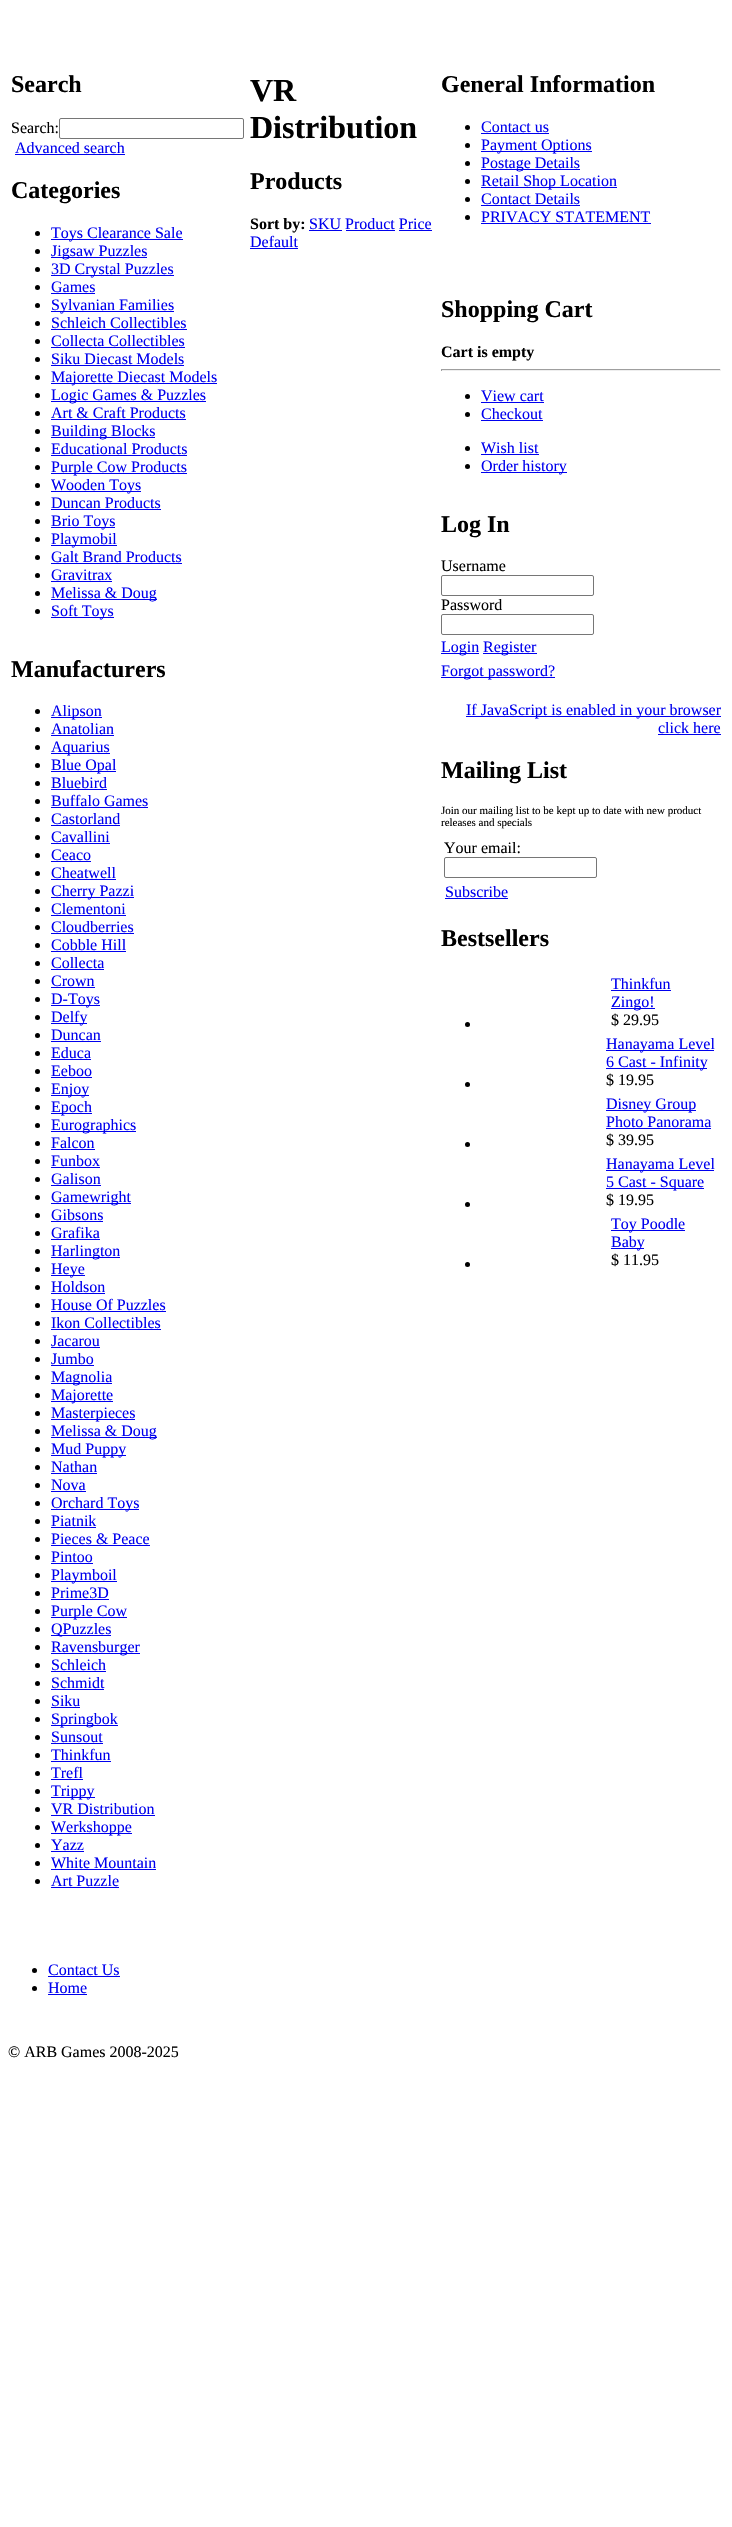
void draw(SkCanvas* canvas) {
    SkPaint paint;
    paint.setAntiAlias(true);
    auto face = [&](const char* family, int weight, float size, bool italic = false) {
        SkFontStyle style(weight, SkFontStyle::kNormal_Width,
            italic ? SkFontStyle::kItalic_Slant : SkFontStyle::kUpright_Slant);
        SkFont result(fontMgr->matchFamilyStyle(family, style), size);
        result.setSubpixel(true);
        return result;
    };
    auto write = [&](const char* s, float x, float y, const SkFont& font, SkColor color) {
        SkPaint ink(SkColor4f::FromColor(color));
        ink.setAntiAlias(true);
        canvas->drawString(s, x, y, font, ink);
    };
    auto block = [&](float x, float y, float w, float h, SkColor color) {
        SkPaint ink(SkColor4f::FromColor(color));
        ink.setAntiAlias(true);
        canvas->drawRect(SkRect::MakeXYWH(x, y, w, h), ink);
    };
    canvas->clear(SK_ColorWHITE);
    auto kFont1 = face("Liberation Serif", 700, 24);
    write("Search", 11, 92, kFont1, SK_ColorBLACK);
    auto kFont2 = face("Liberation Serif", 400, 16);
    write("Search:", 11, 133, kFont2, SK_ColorBLACK);
    paint.setStyle(SkPaint::kStroke_Style);
    paint.setStrokeWidth(1);
    paint.setColor(SkColorSetRGB(118, 118, 118));
    canvas->drawRoundRect(SkRect::MakeXYWH(59.5f, 118.5f, 184, 20), 1.5f, 1.5f, paint);
    write("Advanced search", 15, 153, kFont2, SkColorSetRGB(0, 0, 238));
    block(15, 154, 110, 1, SkColorSetRGB(0, 0, 238));
    write("Categories", 11, 198, kFont1, SK_ColorBLACK);
    paint.setStyle(SkPaint::kFill_Style);
    paint.setColor(SK_ColorBLACK);
    canvas->drawCircle(37.5f, 233.5f, 2.5f, paint);
    block(51, 239, 132, 1, SkColorSetRGB(0, 0, 238));
    write("Toys Clearance Sale", 51, 238, kFont2, SkColorSetRGB(0, 0, 238));
    canvas->drawCircle(37.5f, 251.5f, 2.5f, paint);
    block(51, 257, 96, 1, SkColorSetRGB(0, 0, 238));
    write("Jigsaw Puzzles", 51, 256, kFont2, SkColorSetRGB(0, 0, 238));
    canvas->drawCircle(37.5f, 269.5f, 2.5f, paint);
    block(51, 275, 123, 1, SkColorSetRGB(0, 0, 238));
    write("3D Crystal Puzzles", 51, 274, kFont2, SkColorSetRGB(0, 0, 238));
    canvas->drawCircle(37.5f, 287.5f, 2.5f, paint);
    write("Games", 51, 292, kFont2, SkColorSetRGB(0, 0, 238));
    block(51, 293, 44, 1, SkColorSetRGB(0, 0, 238));
    canvas->drawCircle(37.5f, 305.5f, 2.5f, paint);
    block(51, 311, 123, 1, SkColorSetRGB(0, 0, 238));
    write("Sylvanian Families", 51, 310, kFont2, SkColorSetRGB(0, 0, 238));
    canvas->drawCircle(37.5f, 323.5f, 2.5f, paint);
    write("Schleich Collectibles", 51, 328, kFont2, SkColorSetRGB(0, 0, 238));
    block(51, 329, 136, 1, SkColorSetRGB(0, 0, 238));
    canvas->drawCircle(37.5f, 341.5f, 2.5f, paint);
    write("Collecta Collectibles", 51, 346, kFont2, SkColorSetRGB(0, 0, 238));
    block(51, 347, 134, 1, SkColorSetRGB(0, 0, 238));
    canvas->drawCircle(37.5f, 359.5f, 2.5f, paint);
    write("Siku Diecast Models", 51, 364, kFont2, SkColorSetRGB(0, 0, 238));
    block(51, 365, 133, 1, SkColorSetRGB(0, 0, 238));
    canvas->drawCircle(37.5f, 377.5f, 2.5f, paint);
    block(51, 383, 166, 1, SkColorSetRGB(0, 0, 238));
    write("Majorette Diecast Models", 51, 382, kFont2, SkColorSetRGB(0, 0, 238));
    canvas->drawCircle(37.5f, 395.5f, 2.5f, paint);
    block(51, 401, 155, 1, SkColorSetRGB(0, 0, 238));
    write("Logic Games & Puzzles", 51, 400, kFont2, SkColorSetRGB(0, 0, 238));
    canvas->drawCircle(37.5f, 413.5f, 2.5f, paint);
    write("Art & Craft Products", 51, 418, kFont2, SkColorSetRGB(0, 0, 238));
    block(51, 419, 135, 1, SkColorSetRGB(0, 0, 238));
    canvas->drawCircle(37.5f, 431.5f, 2.5f, paint);
    block(51, 437, 104, 1, SkColorSetRGB(0, 0, 238));
    write("Building Blocks", 51, 436, kFont2, SkColorSetRGB(0, 0, 238));
    canvas->drawCircle(37.5f, 449.5f, 2.5f, paint);
    write("Educational Products", 51, 454, kFont2, SkColorSetRGB(0, 0, 238));
    block(51, 455, 136, 1, SkColorSetRGB(0, 0, 238));
    canvas->drawCircle(37.5f, 467.5f, 2.5f, paint);
    block(51, 473, 136, 1, SkColorSetRGB(0, 0, 238));
    write("Purple Cow Products", 51, 472, kFont2, SkColorSetRGB(0, 0, 238));
    canvas->drawCircle(37.5f, 485.5f, 2.5f, paint);
    block(51, 491, 90, 1, SkColorSetRGB(0, 0, 238));
    write("Wooden Toys", 51, 490, kFont2, SkColorSetRGB(0, 0, 238));
    canvas->drawCircle(37.5f, 503.5f, 2.5f, paint);
    write("Duncan Products", 51, 508, kFont2, SkColorSetRGB(0, 0, 238));
    block(51, 509, 110, 1, SkColorSetRGB(0, 0, 238));
    canvas->drawCircle(37.5f, 521.5f, 2.5f, paint);
    block(51, 527, 64, 1, SkColorSetRGB(0, 0, 238));
    write("Brio Toys", 51, 526, kFont2, SkColorSetRGB(0, 0, 238));
    canvas->drawCircle(37.5f, 539.5f, 2.5f, paint);
    block(51, 545, 66, 1, SkColorSetRGB(0, 0, 238));
    write("Playmobil", 51, 544, kFont2, SkColorSetRGB(0, 0, 238));
    canvas->drawCircle(37.5f, 557.5f, 2.5f, paint);
    write("Galt Brand Products", 51, 562, kFont2, SkColorSetRGB(0, 0, 238));
    block(51, 563, 131, 1, SkColorSetRGB(0, 0, 238));
    canvas->drawCircle(37.5f, 575.5f, 2.5f, paint);
    write("Gravitrax", 51, 580, kFont2, SkColorSetRGB(0, 0, 238));
    block(51, 581, 61, 1, SkColorSetRGB(0, 0, 238));
    canvas->drawCircle(37.5f, 593.5f, 2.5f, paint);
    block(51, 599, 106, 1, SkColorSetRGB(0, 0, 238));
    write("Melissa & Doug", 51, 598, kFont2, SkColorSetRGB(0, 0, 238));
    canvas->drawCircle(37.5f, 611.5f, 2.5f, paint);
    block(51, 617, 63, 1, SkColorSetRGB(0, 0, 238));
    write("Soft Toys", 51, 616, kFont2, SkColorSetRGB(0, 0, 238));
    write("Manufacturers", 11, 677, kFont1, SK_ColorBLACK);
    canvas->drawCircle(37.5f, 711.5f, 2.5f, paint);
    block(51, 717, 51, 1, SkColorSetRGB(0, 0, 238));
    write("Alipson", 51, 716, kFont2, SkColorSetRGB(0, 0, 238));
    canvas->drawCircle(37.5f, 729.5f, 2.5f, paint);
    write("Anatolian", 51, 734, kFont2, SkColorSetRGB(0, 0, 238));
    block(51, 735, 63, 1, SkColorSetRGB(0, 0, 238));
    canvas->drawCircle(37.5f, 747.5f, 2.5f, paint);
    block(51, 753, 59, 1, SkColorSetRGB(0, 0, 238));
    write("Aquarius", 51, 752, kFont2, SkColorSetRGB(0, 0, 238));
    canvas->drawCircle(37.5f, 765.5f, 2.5f, paint);
    block(51, 771, 65, 1, SkColorSetRGB(0, 0, 238));
    write("Blue Opal", 51, 770, kFont2, SkColorSetRGB(0, 0, 238));
    canvas->drawCircle(37.5f, 783.5f, 2.5f, paint);
    write("Bluebird", 51, 788, kFont2, SkColorSetRGB(0, 0, 238));
    block(51, 789, 56, 1, SkColorSetRGB(0, 0, 238));
    canvas->drawCircle(37.5f, 801.5f, 2.5f, paint);
    write("Buffalo Games", 51, 806, kFont2, SkColorSetRGB(0, 0, 238));
    block(51, 807, 97, 1, SkColorSetRGB(0, 0, 238));
    canvas->drawCircle(37.5f, 819.5f, 2.5f, paint);
    write("Castorland", 51, 824, kFont2, SkColorSetRGB(0, 0, 238));
    block(51, 825, 69, 1, SkColorSetRGB(0, 0, 238));
    canvas->drawCircle(37.5f, 837.5f, 2.5f, paint);
    write("Cavallini", 51, 842, kFont2, SkColorSetRGB(0, 0, 238));
    block(51, 843, 59, 1, SkColorSetRGB(0, 0, 238));
    canvas->drawCircle(37.5f, 855.5f, 2.5f, paint);
    write("Ceaco", 51, 860, kFont2, SkColorSetRGB(0, 0, 238));
    block(51, 861, 40, 1, SkColorSetRGB(0, 0, 238));
    canvas->drawCircle(37.5f, 873.5f, 2.5f, paint);
    write("Cheatwell", 51, 878, kFont2, SkColorSetRGB(0, 0, 238));
    block(51, 879, 65, 1, SkColorSetRGB(0, 0, 238));
    canvas->drawCircle(37.5f, 891.5f, 2.5f, paint);
    block(51, 897, 83, 1, SkColorSetRGB(0, 0, 238));
    write("Cherry Pazzi", 51, 896, kFont2, SkColorSetRGB(0, 0, 238));
    canvas->drawCircle(37.5f, 909.5f, 2.5f, paint);
    write("Clementoni", 51, 914, kFont2, SkColorSetRGB(0, 0, 238));
    block(51, 915, 75, 1, SkColorSetRGB(0, 0, 238));
    canvas->drawCircle(37.5f, 927.5f, 2.5f, paint);
    write("Cloudberries", 51, 932, kFont2, SkColorSetRGB(0, 0, 238));
    block(51, 933, 83, 1, SkColorSetRGB(0, 0, 238));
    canvas->drawCircle(37.5f, 945.5f, 2.5f, paint);
    write("Cobble Hill", 51, 950, kFont2, SkColorSetRGB(0, 0, 238));
    block(51, 951, 75, 1, SkColorSetRGB(0, 0, 238));
    canvas->drawCircle(37.5f, 963.5f, 2.5f, paint);
    write("Collecta", 51, 968, kFont2, SkColorSetRGB(0, 0, 238));
    block(51, 969, 53, 1, SkColorSetRGB(0, 0, 238));
    canvas->drawCircle(37.5f, 981.5f, 2.5f, paint);
    write("Crown", 51, 986, kFont2, SkColorSetRGB(0, 0, 238));
    block(51, 987, 44, 1, SkColorSetRGB(0, 0, 238));
    canvas->drawCircle(37.5f, 999.5f, 2.5f, paint);
    block(51, 1005, 49, 1, SkColorSetRGB(0, 0, 238));
    write("D-Toys", 51, 1004, kFont2, SkColorSetRGB(0, 0, 238));
    canvas->drawCircle(37.5f, 1017.5f, 2.5f, paint);
    block(51, 1023, 36, 1, SkColorSetRGB(0, 0, 238));
    write("Delfy", 51, 1022, kFont2, SkColorSetRGB(0, 0, 238));
    canvas->drawCircle(37.5f, 1035.5f, 2.5f, paint);
    write("Duncan", 51, 1040, kFont2, SkColorSetRGB(0, 0, 238));
    block(51, 1041, 50, 1, SkColorSetRGB(0, 0, 238));
    canvas->drawCircle(37.5f, 1053.5f, 2.5f, paint);
    write("Educa", 51, 1058, kFont2, SkColorSetRGB(0, 0, 238));
    block(51, 1059, 40, 1, SkColorSetRGB(0, 0, 238));
    canvas->drawCircle(37.5f, 1071.5f, 2.5f, paint);
    write("Eeboo", 51, 1076, kFont2, SkColorSetRGB(0, 0, 238));
    block(51, 1077, 41, 1, SkColorSetRGB(0, 0, 238));
    canvas->drawCircle(37.5f, 1089.5f, 2.5f, paint);
    block(51, 1095, 38, 1, SkColorSetRGB(0, 0, 238));
    write("Enjoy", 51, 1094, kFont2, SkColorSetRGB(0, 0, 238));
    canvas->drawCircle(37.5f, 1107.5f, 2.5f, paint);
    block(51, 1113, 41, 1, SkColorSetRGB(0, 0, 238));
    write("Epoch", 51, 1112, kFont2, SkColorSetRGB(0, 0, 238));
    canvas->drawCircle(37.5f, 1125.5f, 2.5f, paint);
    block(51, 1131, 85, 1, SkColorSetRGB(0, 0, 238));
    write("Eurographics", 51, 1130, kFont2, SkColorSetRGB(0, 0, 238));
    canvas->drawCircle(37.5f, 1143.5f, 2.5f, paint);
    write("Falcon", 51, 1148, kFont2, SkColorSetRGB(0, 0, 238));
    block(51, 1149, 44, 1, SkColorSetRGB(0, 0, 238));
    canvas->drawCircle(37.5f, 1161.5f, 2.5f, paint);
    write("Funbox", 51, 1166, kFont2, SkColorSetRGB(0, 0, 238));
    block(51, 1167, 49, 1, SkColorSetRGB(0, 0, 238));
    canvas->drawCircle(37.5f, 1179.5f, 2.5f, paint);
    write("Galison", 51, 1184, kFont2, SkColorSetRGB(0, 0, 238));
    block(51, 1185, 50, 1, SkColorSetRGB(0, 0, 238));
    canvas->drawCircle(37.5f, 1197.5f, 2.5f, paint);
    block(51, 1203, 80, 1, SkColorSetRGB(0, 0, 238));
    write("Gamewright", 51, 1202, kFont2, SkColorSetRGB(0, 0, 238));
    canvas->drawCircle(37.5f, 1215.5f, 2.5f, paint);
    write("Gibsons", 51, 1220, kFont2, SkColorSetRGB(0, 0, 238));
    block(51, 1221, 52, 1, SkColorSetRGB(0, 0, 238));
    canvas->drawCircle(37.5f, 1233.5f, 2.5f, paint);
    write("Grafika", 51, 1238, kFont2, SkColorSetRGB(0, 0, 238));
    block(51, 1239, 49, 1, SkColorSetRGB(0, 0, 238));
    canvas->drawCircle(37.5f, 1251.5f, 2.5f, paint);
    block(51, 1257, 69, 1, SkColorSetRGB(0, 0, 238));
    write("Harlington", 51, 1256, kFont2, SkColorSetRGB(0, 0, 238));
    canvas->drawCircle(37.5f, 1269.5f, 2.5f, paint);
    block(51, 1275, 34, 1, SkColorSetRGB(0, 0, 238));
    write("Heye", 51, 1274, kFont2, SkColorSetRGB(0, 0, 238));
    canvas->drawCircle(37.5f, 1287.5f, 2.5f, paint);
    write("Holdson", 51, 1292, kFont2, SkColorSetRGB(0, 0, 238));
    block(51, 1293, 54, 1, SkColorSetRGB(0, 0, 238));
    canvas->drawCircle(37.5f, 1305.5f, 2.5f, paint);
    write("House Of Puzzles", 51, 1310, kFont2, SkColorSetRGB(0, 0, 238));
    block(51, 1311, 115, 1, SkColorSetRGB(0, 0, 238));
    canvas->drawCircle(37.5f, 1323.5f, 2.5f, paint);
    write("Ikon Collectibles", 51, 1328, kFont2, SkColorSetRGB(0, 0, 238));
    block(51, 1329, 110, 1, SkColorSetRGB(0, 0, 238));
    canvas->drawCircle(37.5f, 1341.5f, 2.5f, paint);
    write("Jacarou", 51, 1346, kFont2, SkColorSetRGB(0, 0, 238));
    block(51, 1347, 49, 1, SkColorSetRGB(0, 0, 238));
    canvas->drawCircle(37.5f, 1359.5f, 2.5f, paint);
    write("Jumbo", 51, 1364, kFont2, SkColorSetRGB(0, 0, 238));
    block(51, 1365, 43, 1, SkColorSetRGB(0, 0, 238));
    canvas->drawCircle(37.5f, 1377.5f, 2.5f, paint);
    block(51, 1383, 61, 1, SkColorSetRGB(0, 0, 238));
    write("Magnolia", 51, 1382, kFont2, SkColorSetRGB(0, 0, 238));
    canvas->drawCircle(37.5f, 1395.5f, 2.5f, paint);
    block(51, 1401, 62, 1, SkColorSetRGB(0, 0, 238));
    write("Majorette", 51, 1400, kFont2, SkColorSetRGB(0, 0, 238));
    canvas->drawCircle(37.5f, 1413.5f, 2.5f, paint);
    block(51, 1419, 84, 1, SkColorSetRGB(0, 0, 238));
    write("Masterpieces", 51, 1418, kFont2, SkColorSetRGB(0, 0, 238));
    canvas->drawCircle(37.5f, 1431.5f, 2.5f, paint);
    block(51, 1437, 106, 1, SkColorSetRGB(0, 0, 238));
    write("Melissa & Doug", 51, 1436, kFont2, SkColorSetRGB(0, 0, 238));
    canvas->drawCircle(37.5f, 1449.5f, 2.5f, paint);
    block(51, 1455, 75, 1, SkColorSetRGB(0, 0, 238));
    write("Mud Puppy", 51, 1454, kFont2, SkColorSetRGB(0, 0, 238));
    canvas->drawCircle(37.5f, 1467.5f, 2.5f, paint);
    write("Nathan", 51, 1472, kFont2, SkColorSetRGB(0, 0, 238));
    block(51, 1473, 46, 1, SkColorSetRGB(0, 0, 238));
    canvas->drawCircle(37.5f, 1485.5f, 2.5f, paint);
    write("Nova", 51, 1490, kFont2, SkColorSetRGB(0, 0, 238));
    block(51, 1491, 35, 1, SkColorSetRGB(0, 0, 238));
    canvas->drawCircle(37.5f, 1503.5f, 2.5f, paint);
    block(51, 1509, 88, 1, SkColorSetRGB(0, 0, 238));
    write("Orchard Toys", 51, 1508, kFont2, SkColorSetRGB(0, 0, 238));
    canvas->drawCircle(37.5f, 1521.5f, 2.5f, paint);
    write("Piatnik", 51, 1526, kFont2, SkColorSetRGB(0, 0, 238));
    block(51, 1527, 45, 1, SkColorSetRGB(0, 0, 238));
    canvas->drawCircle(37.5f, 1539.5f, 2.5f, paint);
    write("Pieces & Peace", 51, 1544, kFont2, SkColorSetRGB(0, 0, 238));
    block(51, 1545, 99, 1, SkColorSetRGB(0, 0, 238));
    canvas->drawCircle(37.5f, 1557.5f, 2.5f, paint);
    write("Pintoo", 51, 1562, kFont2, SkColorSetRGB(0, 0, 238));
    block(51, 1563, 42, 1, SkColorSetRGB(0, 0, 238));
    canvas->drawCircle(37.5f, 1575.5f, 2.5f, paint);
    block(51, 1581, 66, 1, SkColorSetRGB(0, 0, 238));
    write("Playmboil", 51, 1580, kFont2, SkColorSetRGB(0, 0, 238));
    canvas->drawCircle(37.5f, 1593.5f, 2.5f, paint);
    write("Prime3D", 51, 1598, kFont2, SkColorSetRGB(0, 0, 238));
    block(51, 1599, 58, 1, SkColorSetRGB(0, 0, 238));
    canvas->drawCircle(37.5f, 1611.5f, 2.5f, paint);
    block(51, 1617, 76, 1, SkColorSetRGB(0, 0, 238));
    write("Purple Cow", 51, 1616, kFont2, SkColorSetRGB(0, 0, 238));
    canvas->drawCircle(37.5f, 1629.5f, 2.5f, paint);
    block(51, 1635, 60, 1, SkColorSetRGB(0, 0, 238));
    write("QPuzzles", 51, 1634, kFont2, SkColorSetRGB(0, 0, 238));
    canvas->drawCircle(37.5f, 1647.5f, 2.5f, paint);
    block(51, 1653, 89, 1, SkColorSetRGB(0, 0, 238));
    write("Ravensburger", 51, 1652, kFont2, SkColorSetRGB(0, 0, 238));
    canvas->drawCircle(37.5f, 1665.5f, 2.5f, paint);
    write("Schleich", 51, 1670, kFont2, SkColorSetRGB(0, 0, 238));
    block(51, 1671, 55, 1, SkColorSetRGB(0, 0, 238));
    canvas->drawCircle(37.5f, 1683.5f, 2.5f, paint);
    write("Schmidt", 51, 1688, kFont2, SkColorSetRGB(0, 0, 238));
    block(51, 1689, 53, 1, SkColorSetRGB(0, 0, 238));
    canvas->drawCircle(37.5f, 1701.5f, 2.5f, paint);
    write("Siku", 51, 1706, kFont2, SkColorSetRGB(0, 0, 238));
    block(51, 1707, 29, 1, SkColorSetRGB(0, 0, 238));
    canvas->drawCircle(37.5f, 1719.5f, 2.5f, paint);
    block(51, 1725, 67, 1, SkColorSetRGB(0, 0, 238));
    write("Springbok", 51, 1724, kFont2, SkColorSetRGB(0, 0, 238));
    canvas->drawCircle(37.5f, 1737.5f, 2.5f, paint);
    write("Sunsout", 51, 1742, kFont2, SkColorSetRGB(0, 0, 238));
    block(51, 1743, 52, 1, SkColorSetRGB(0, 0, 238));
    canvas->drawCircle(37.5f, 1755.5f, 2.5f, paint);
    write("Thinkfun", 51, 1760, kFont2, SkColorSetRGB(0, 0, 238));
    block(51, 1761, 60, 1, SkColorSetRGB(0, 0, 238));
    canvas->drawCircle(37.5f, 1773.5f, 2.5f, paint);
    write("Trefl", 51, 1778, kFont2, SkColorSetRGB(0, 0, 238));
    block(51, 1779, 32, 1, SkColorSetRGB(0, 0, 238));
    canvas->drawCircle(37.5f, 1791.5f, 2.5f, paint);
    block(51, 1797, 44, 1, SkColorSetRGB(0, 0, 238));
    write("Trippy", 51, 1796, kFont2, SkColorSetRGB(0, 0, 238));
    canvas->drawCircle(37.5f, 1809.5f, 2.5f, paint);
    write("VR Distribution", 51, 1814, kFont2, SkColorSetRGB(0, 0, 238));
    block(51, 1815, 104, 1, SkColorSetRGB(0, 0, 238));
    canvas->drawCircle(37.5f, 1827.5f, 2.5f, paint);
    block(51, 1833, 81, 1, SkColorSetRGB(0, 0, 238));
    write("Werkshoppe", 51, 1832, kFont2, SkColorSetRGB(0, 0, 238));
    canvas->drawCircle(37.5f, 1845.5f, 2.5f, paint);
    write("Yazz", 51, 1850, kFont2, SkColorSetRGB(0, 0, 238));
    block(51, 1851, 33, 1, SkColorSetRGB(0, 0, 238));
    canvas->drawCircle(37.5f, 1863.5f, 2.5f, paint);
    write("White Mountain", 51, 1868, kFont2, SkColorSetRGB(0, 0, 238));
    block(51, 1869, 105, 1, SkColorSetRGB(0, 0, 238));
    canvas->drawCircle(37.5f, 1881.5f, 2.5f, paint);
    write("Art Puzzle", 51, 1886, kFont2, SkColorSetRGB(0, 0, 238));
    block(51, 1887, 68, 1, SkColorSetRGB(0, 0, 238));
    auto kFont3 = face("Liberation Serif", 700, 32);
    write("VR", 250, 101, kFont3, SK_ColorBLACK);
    write("Distribution", 250, 138, kFont3, SK_ColorBLACK);
    write("Products", 250, 189, kFont1, SK_ColorBLACK);
    auto kFont4 = face("Liberation Serif", 700, 16);
    write("Sort by:", 250, 229, kFont4, SK_ColorBLACK);
    write("SKU Product Price", 309, 229, kFont2, SkColorSetRGB(0, 0, 238));
    block(309, 230, 33, 1, SkColorSetRGB(0, 0, 238));
    block(346, 230, 49, 1, SkColorSetRGB(0, 0, 238));
    block(399, 230, 33, 1, SkColorSetRGB(0, 0, 238));
    write("Default", 250, 247, kFont2, SkColorSetRGB(0, 0, 238));
    block(250, 248, 48, 1, SkColorSetRGB(0, 0, 238));
    write("General Information", 441, 92, kFont1, SK_ColorBLACK);
    canvas->drawCircle(467.5f, 127.5f, 2.5f, paint);
    write("Contact us", 481, 132, kFont2, SkColorSetRGB(0, 0, 238));
    block(481, 133, 68, 1, SkColorSetRGB(0, 0, 238));
    canvas->drawCircle(467.5f, 145.5f, 2.5f, paint);
    block(481, 151, 111, 1, SkColorSetRGB(0, 0, 238));
    write("Payment Options", 481, 150, kFont2, SkColorSetRGB(0, 0, 238));
    canvas->drawCircle(467.5f, 163.5f, 2.5f, paint);
    block(481, 169, 99, 1, SkColorSetRGB(0, 0, 238));
    write("Postage Details", 481, 168, kFont2, SkColorSetRGB(0, 0, 238));
    canvas->drawCircle(467.5f, 181.5f, 2.5f, paint);
    block(481, 187, 136, 1, SkColorSetRGB(0, 0, 238));
    write("Retail Shop Location", 481, 186, kFont2, SkColorSetRGB(0, 0, 238));
    canvas->drawCircle(467.5f, 199.5f, 2.5f, paint);
    write("Contact Details", 481, 204, kFont2, SkColorSetRGB(0, 0, 238));
    block(481, 205, 99, 1, SkColorSetRGB(0, 0, 238));
    canvas->drawCircle(467.5f, 217.5f, 2.5f, paint);
    write("PRIVACY STATEMENT", 481, 222, kFont2, SkColorSetRGB(0, 0, 238));
    block(481, 223, 170, 1, SkColorSetRGB(0, 0, 238));
    write("Shopping Cart", 441, 317, kFont1, SK_ColorBLACK);
    write("Cart is empty", 441, 357, kFont4, SK_ColorBLACK);
    block(441, 369, 280, 1, SkColorSetRGB(159, 159, 159));
    block(720, 369, 1, 2, SkColorSetRGB(238, 238, 238));
    block(441, 370, 280, 1, SkColorSetRGB(238, 238, 238));
    block(441, 369, 1, 2, SkColorSetRGB(159, 159, 159));
    canvas->drawCircle(467.5f, 396.5f, 2.5f, paint);
    write("View cart", 481, 401, kFont2, SkColorSetRGB(0, 0, 238));
    block(481, 402, 63, 1, SkColorSetRGB(0, 0, 238));
    canvas->drawCircle(467.5f, 414.5f, 2.5f, paint);
    write("Checkout", 481, 419, kFont2, SkColorSetRGB(0, 0, 238));
    block(481, 420, 62, 1, SkColorSetRGB(0, 0, 238));
    canvas->drawCircle(467.5f, 448.5f, 2.5f, paint);
    write("Wish list", 481, 453, kFont2, SkColorSetRGB(0, 0, 238));
    block(481, 454, 58, 1, SkColorSetRGB(0, 0, 238));
    canvas->drawCircle(467.5f, 466.5f, 2.5f, paint);
    block(481, 472, 86, 1, SkColorSetRGB(0, 0, 238));
    write("Order history", 481, 471, kFont2, SkColorSetRGB(0, 0, 238));
    write("Log In", 441, 532, kFont1, SK_ColorBLACK);
    write("Username", 441, 571, kFont2, SK_ColorBLACK);
    paint.setStyle(SkPaint::kStroke_Style);
    paint.setColor(SkColorSetRGB(118, 118, 118));
    canvas->drawRoundRect(SkRect::MakeXYWH(441.5f, 575.5f, 152, 20), 1.5f, 1.5f, paint);
    write("Password", 441, 610, kFont2, SK_ColorBLACK);
    canvas->drawRoundRect(SkRect::MakeXYWH(441.5f, 614.5f, 152, 20), 1.5f, 1.5f, paint);
    block(441, 653, 38, 1, SkColorSetRGB(0, 0, 238));
    write("Login", 441, 652, kFont2, SkColorSetRGB(0, 0, 238));
    block(483, 653, 54, 1, SkColorSetRGB(0, 0, 238));
    write("Register", 483, 652, kFont2, SkColorSetRGB(0, 0, 238));
    block(441, 677, 114, 1, SkColorSetRGB(0, 0, 238));
    write("Forgot password?", 441, 676, kFont2, SkColorSetRGB(0, 0, 238));
    block(466, 716, 255, 1, SkColorSetRGB(0, 0, 238));
    write("If JavaScript is enabled in your browser", 466, 715, kFont2, SkColorSetRGB(0, 0, 238));
    write("click here", 658, 733, kFont2, SkColorSetRGB(0, 0, 238));
    block(658, 734, 63, 1, SkColorSetRGB(0, 0, 238));
    write("Mailing List", 441, 778, kFont1, SK_ColorBLACK);
    auto kFont5 = face("Liberation Serif", 400, 11);
    write("Join our mailing list to be kept up to date with new product", 441, 814, kFont5, SK_ColorBLACK);
    write("releases and specials", 441, 826, kFont5, SK_ColorBLACK);
    write("Your email:", 444, 853, kFont2, SK_ColorBLACK);
    canvas->drawRoundRect(SkRect::MakeXYWH(444.5f, 857.5f, 152, 20), 1.5f, 1.5f, paint);
    write("Subscribe", 445, 897, kFont2, SkColorSetRGB(0, 0, 238));
    block(445, 898, 63, 1, SkColorSetRGB(0, 0, 238));
    write("Bestsellers", 441, 946, kFont1, SK_ColorBLACK);
    paint.setStyle(SkPaint::kFill_Style);
    paint.setColor(SK_ColorBLACK);
    canvas->drawCircle(467.5f, 1024.5f, 2.5f, paint);
    write("Thinkfun", 611, 989, kFont2, SkColorSetRGB(0, 0, 238));
    block(611, 990, 60, 1, SkColorSetRGB(0, 0, 238));
    block(611, 1008, 44, 1, SkColorSetRGB(0, 0, 238));
    write("Zingo!", 611, 1007, kFont2, SkColorSetRGB(0, 0, 238));
    write("$ 29.95", 611, 1025, kFont2, SK_ColorBLACK);
    canvas->drawCircle(467.5f, 1084.5f, 2.5f, paint);
    block(606, 1050, 108, 1, SkColorSetRGB(0, 0, 238));
    write("Hanayama Level", 606, 1049, kFont2, SkColorSetRGB(0, 0, 238));
    block(606, 1068, 101, 1, SkColorSetRGB(0, 0, 238));
    write("6 Cast - Infinity", 606, 1067, kFont2, SkColorSetRGB(0, 0, 238));
    write("$ 19.95", 606, 1085, kFont2, SK_ColorBLACK);
    canvas->drawCircle(467.5f, 1144.5f, 2.5f, paint);
    block(606, 1110, 90, 1, SkColorSetRGB(0, 0, 238));
    write("Disney Group", 606, 1109, kFont2, SkColorSetRGB(0, 0, 238));
    write("Photo Panorama", 606, 1127, kFont2, SkColorSetRGB(0, 0, 238));
    block(606, 1128, 105, 1, SkColorSetRGB(0, 0, 238));
    write("$ 39.95", 606, 1145, kFont2, SK_ColorBLACK);
    canvas->drawCircle(467.5f, 1204.5f, 2.5f, paint);
    block(606, 1170, 108, 1, SkColorSetRGB(0, 0, 238));
    write("Hanayama Level", 606, 1169, kFont2, SkColorSetRGB(0, 0, 238));
    block(606, 1188, 98, 1, SkColorSetRGB(0, 0, 238));
    write("5 Cast - Square", 606, 1187, kFont2, SkColorSetRGB(0, 0, 238));
    write("$ 19.95", 606, 1205, kFont2, SK_ColorBLACK);
    canvas->drawCircle(467.5f, 1264.5f, 2.5f, paint);
    block(611, 1230, 74, 1, SkColorSetRGB(0, 0, 238));
    write("Toy Poodle", 611, 1229, kFont2, SkColorSetRGB(0, 0, 238));
    block(611, 1248, 33, 1, SkColorSetRGB(0, 0, 238));
    write("Baby", 611, 1247, kFont2, SkColorSetRGB(0, 0, 238));
    write("$ 11.95", 611, 1265, kFont2, SK_ColorBLACK);
    canvas->drawCircle(34.5f, 1970.5f, 2.5f, paint);
    write("Contact Us", 48, 1975, kFont2, SkColorSetRGB(0, 0, 238));
    block(48, 1976, 72, 1, SkColorSetRGB(0, 0, 238));
    canvas->drawCircle(34.5f, 1988.5f, 2.5f, paint);
    write("Home", 48, 1993, kFont2, SkColorSetRGB(0, 0, 238));
    block(48, 1994, 39, 1, SkColorSetRGB(0, 0, 238));
    write("© ARB Games 2008-2025", 8, 2057, kFont2, SK_ColorBLACK);
}
